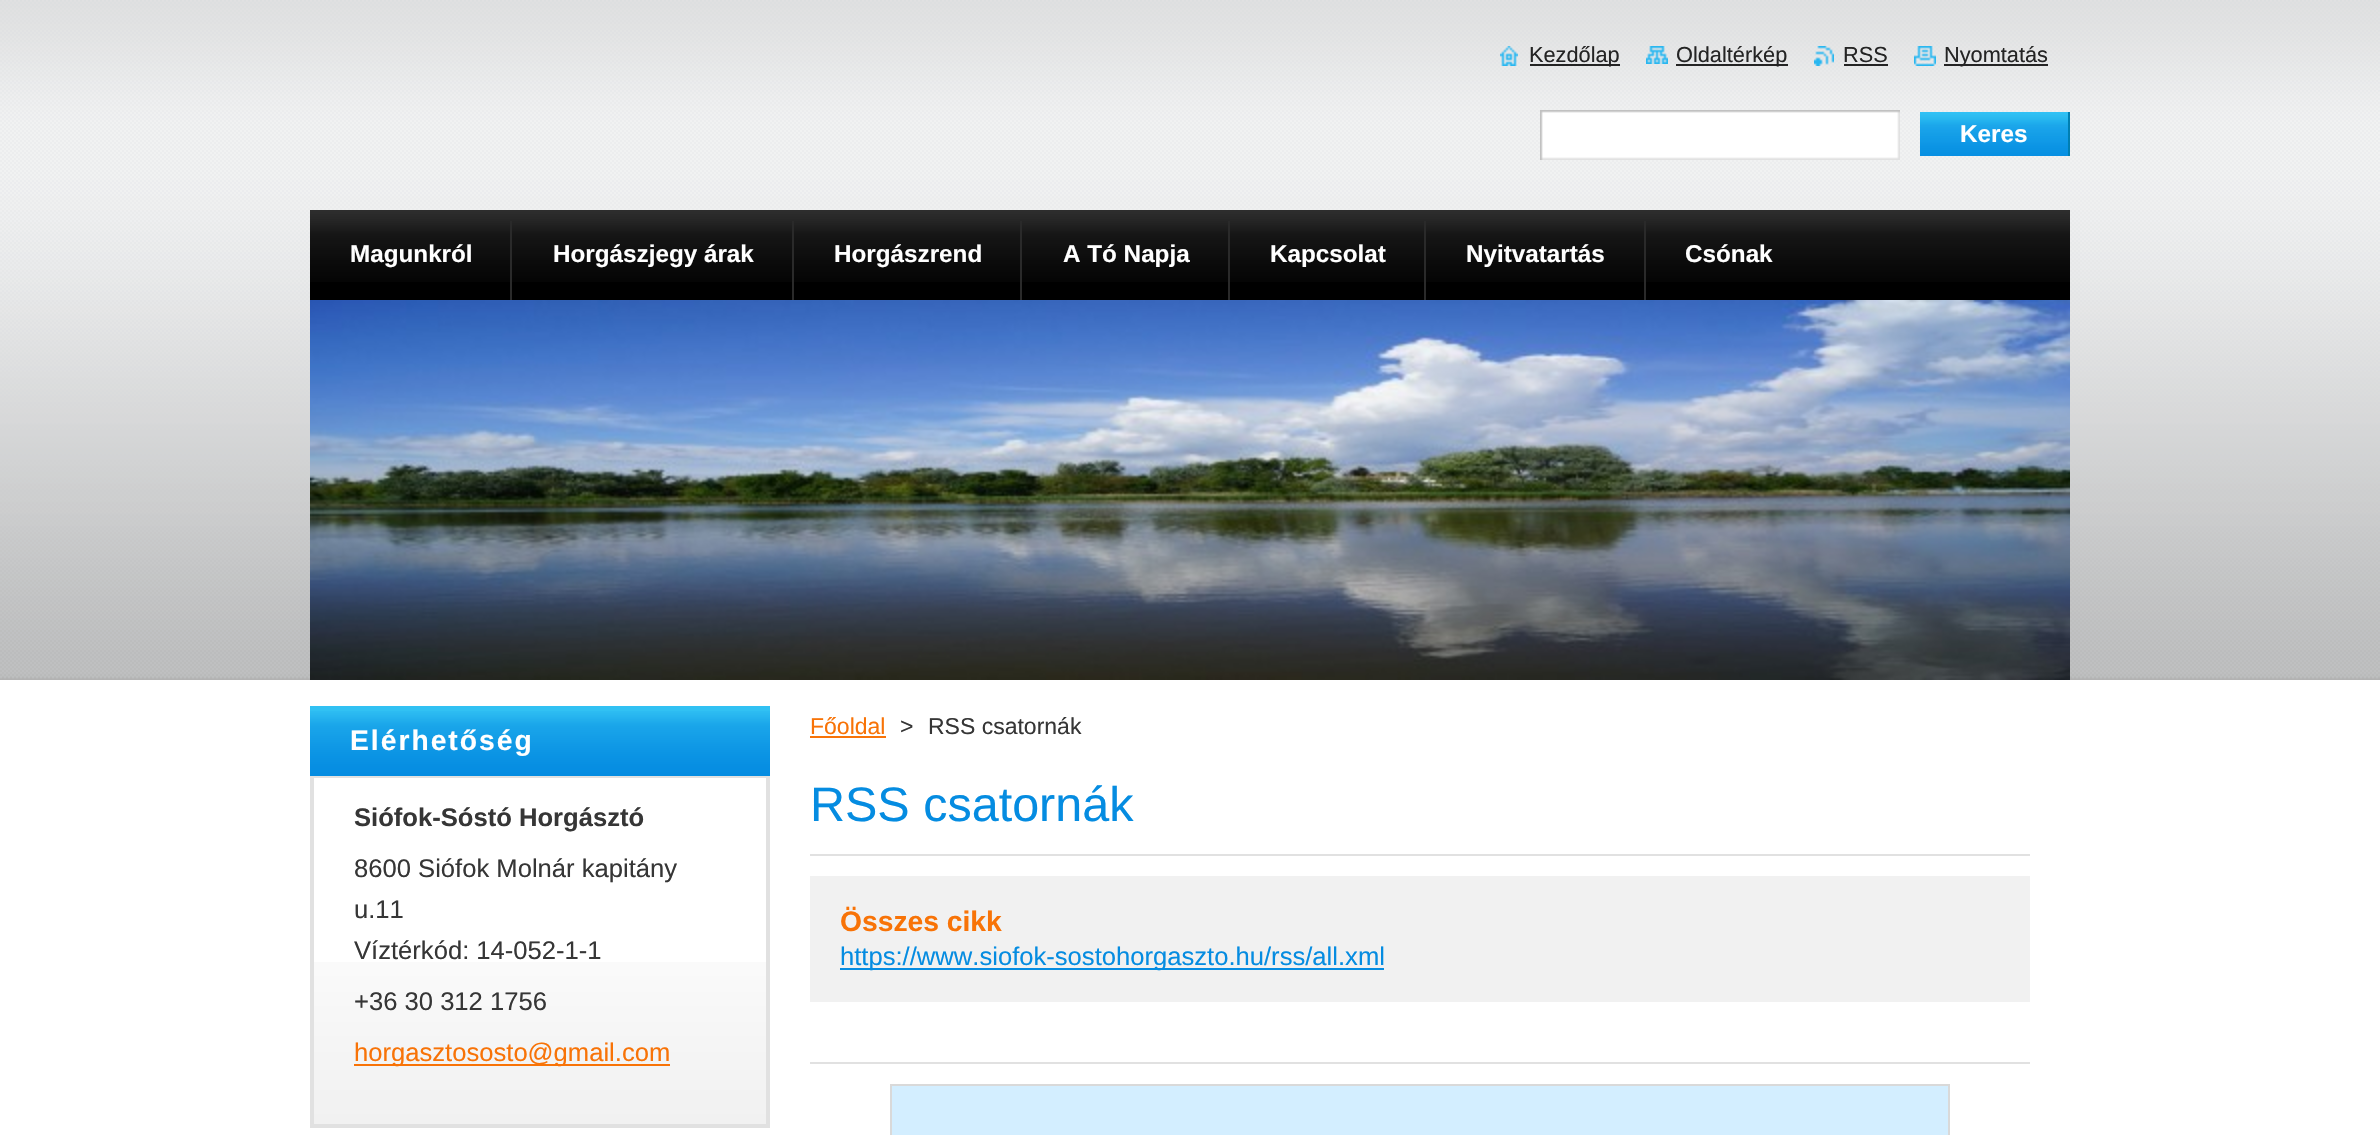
void draw(SkCanvas* canvas) {
    SkPaint paint;
    paint.setAntiAlias(true);
    auto face = [&](const char* family, int weight, float size, bool italic = false) {
        SkFontStyle style(weight, SkFontStyle::kNormal_Width,
            italic ? SkFontStyle::kItalic_Slant : SkFontStyle::kUpright_Slant);
        SkFont result(fontMgr->matchFamilyStyle(family, style), size);
        result.setSubpixel(true);
        return result;
    };
    auto write = [&](const char* s, float x, float y, const SkFont& font, SkColor color) {
        SkPaint ink(SkColor4f::FromColor(color));
        ink.setAntiAlias(true);
        canvas->drawString(s, x, y, font, ink);
    };
    auto writeSpaced = [&](const char* s, float x, float y, const SkFont& font, const SkPaint& ink, float letter, float word) {
        std::vector<SkGlyphID> glyphs(font.countText(s, strlen(s), SkTextEncoding::kUTF8));
        std::vector<float> xs(glyphs.size());
        font.textToGlyphs(s, strlen(s), SkTextEncoding::kUTF8, glyphs);
        font.getXPos(glyphs, xs, x);
        float extra = 0;
        for (size_t i = 0; i < glyphs.size(); i++) {
            xs[i] += extra;
            extra += letter + word * (glyphs[i] == font.unicharToGlyph(' '));
        }
        canvas->drawTextBlob(SkTextBlob::MakeFromPosHGlyphs(glyphs, xs, y, font), 0, 0, ink);
    };
    auto block = [&](float x, float y, float w, float h, SkColor color) {
        SkPaint ink(SkColor4f::FromColor(color));
        ink.setAntiAlias(true);
        canvas->drawRect(SkRect::MakeXYWH(x, y, w, h), ink);
    };
    auto paste = [&](const char* path, float x, float y, float w, float h) {
        auto image = SkImages::DeferredFromEncodedData(SkData::MakeFromFileName(path));
        canvas->drawImageRect(image, SkRect::MakeXYWH(x, y, w, h), SkSamplingOptions());
    };
    canvas->clear(SK_ColorWHITE);
    paste("pic1.png", 0, 0, 2380, 680);
    paste("pic2.png", 1500, 46, 18, 20);
    block(1530, 64, 90, 2, SkColorSetRGB(36, 36, 36));
    auto kFont1 = face("Liberation Sans", 400, 21.75f);
    write("Kezdőlap", 1529, 62, kFont1, SkColorSetRGB(36, 36, 36));
    paste("pic3.png", 1646, 46, 22, 18);
    block(1676, 64, 112, 2, SkColorSetRGB(36, 36, 36));
    write("Oldaltérkép", 1676, 62, kFont1, SkColorSetRGB(36, 36, 36));
    paste("pic4.png", 1814, 46, 20, 20);
    write("RSS", 1843, 62, kFont1, SkColorSetRGB(36, 36, 36));
    block(1844, 64, 44, 2, SkColorSetRGB(36, 36, 36));
    paste("pic5.png", 1914, 46, 22, 20);
    block(1944, 64, 104, 2, SkColorSetRGB(36, 36, 36));
    write("Nyomtatás", 1944, 62, kFont1, SkColorSetRGB(36, 36, 36));
    paste("pic6.png", 1540, 110, 360, 50);
    paste("pic7.png", 1920, 112, 148, 44);
    block(2068, 112, 2, 44, SkColorSetRGB(0, 127, 178));
    auto kFont2 = face("Liberation Sans", 700, 24.25f);
    write("Keres", 1960, 142, kFont2, SK_ColorWHITE);
    block(310, 282, 1760, 18, SK_ColorBLACK);
    paste("pic8.png", 310, 210, 1760, 72);
    block(510, 221, 2, 79, SkColorSetRGB(42, 42, 42));
    write("Magunkról", 350, 262, kFont2, SK_ColorWHITE);
    block(792, 221, 2, 79, SkColorSetRGB(42, 42, 42));
    write("Horgászjegy árak", 553, 262, kFont2, SK_ColorWHITE);
    block(1020, 221, 2, 79, SkColorSetRGB(42, 42, 42));
    write("Horgászrend", 834, 262, kFont2, SK_ColorWHITE);
    block(1228, 221, 2, 79, SkColorSetRGB(42, 42, 42));
    write("A Tó Napja", 1063, 262, kFont2, SK_ColorWHITE);
    block(1424, 221, 2, 79, SkColorSetRGB(42, 42, 42));
    write("Kapcsolat", 1270, 262, kFont2, SK_ColorWHITE);
    block(1644, 221, 2, 79, SkColorSetRGB(42, 42, 42));
    write("Nyitvatartás", 1466, 262, kFont2, SK_ColorWHITE);
    write("Csónak", 1685, 262, kFont2, SK_ColorWHITE);
    paste("pic9.png", 310, 300, 1760, 380);
    paste("pic10.png", 314, 962, 452, 162);
    block(310, 706, 460, 5, SkColorSetRGB(49, 193, 243));
    paste("pic11.png", 310, 711, 460, 65);
    block(310, 776, 460, 2, SkColorSetRGB(225, 225, 225));
    auto kFont3 = face("Liberation Sans", 700, 28.25f);
    paint.setColor(SK_ColorWHITE);
    writeSpaced("Elérhetőség", 350, 750, kFont3, paint, 2, 0);
    block(766, 778, 4, 350, SkColorSetRGB(225, 225, 225));
    block(310, 1124, 460, 4, SkColorSetRGB(225, 225, 225));
    block(310, 778, 4, 350, SkColorSetRGB(225, 225, 225));
    auto kFont4 = face("Liberation Sans", 700, 25.6f);
    write("Siófok-Sóstó Horgásztó", 354, 826, kFont4, SkColorSetRGB(54, 54, 54));
    auto kFont5 = face("Liberation Sans", 400, 25.6f);
    write("8600 Siófok Molnár kapitány", 354, 877, kFont5, SkColorSetRGB(54, 54, 54));
    write("u.11", 354, 918, kFont5, SkColorSetRGB(54, 54, 54));
    write("Víztérkód: 14-052-1-1", 354, 959, kFont5, SkColorSetRGB(54, 54, 54));
    write("+36 30 312 1756", 354, 1010, kFont5, SkColorSetRGB(54, 54, 54));
    block(354, 1064, 316, 2, SkColorSetRGB(248, 115, 7));
    write("horgasztososto@gmail.com", 354, 1061, kFont5, SkColorSetRGB(248, 115, 7));
    auto kFont6 = face("Liberation Sans", 400, 23);
    write("Főoldal", 810, 734, kFont6, SkColorSetRGB(248, 115, 7));
    block(810, 736, 76, 2, SkColorSetRGB(248, 115, 7));
    write(">", 900, 734, kFont6, SkColorSetRGB(54, 54, 54));
    write("RSS csatornák", 928, 734, kFont6, SkColorSetRGB(54, 54, 54));
    block(810, 854, 1220, 2, SkColorSetRGB(225, 225, 225));
    auto kFont7 = face("Liberation Sans", 400, 48.5f);
    write("RSS csatornák", 810, 821, kFont7, SkColorSetRGB(5, 140, 225));
    block(810, 876, 1220, 126, SkColorSetRGB(241, 241, 241));
    write("Összes cikk", 840, 931, kFont3, SkColorSetRGB(248, 115, 7));
    block(840, 968, 544, 2, SkColorSetRGB(5, 140, 225));
    write("https://www.siofok-sostohorgaszto.hu/rss/all.xml", 840, 965, kFont5, SkColorSetRGB(5, 140, 225));
    block(810, 1062, 1220, 2, SkColorSetRGB(225, 225, 225));
    paint.setColor(SkColorSetRGB(211, 238, 255));
    canvas->drawRect(SkRect::MakeXYWH(891, 1085, 1058, 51), paint);
    paint.setStyle(SkPaint::kStroke_Style);
    paint.setStrokeWidth(2);
    paint.setColor(SkColorSetRGB(217, 217, 217));
    canvas->drawRect(SkRect::MakeXYWH(891, 1085, 1058, 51), paint);
}
